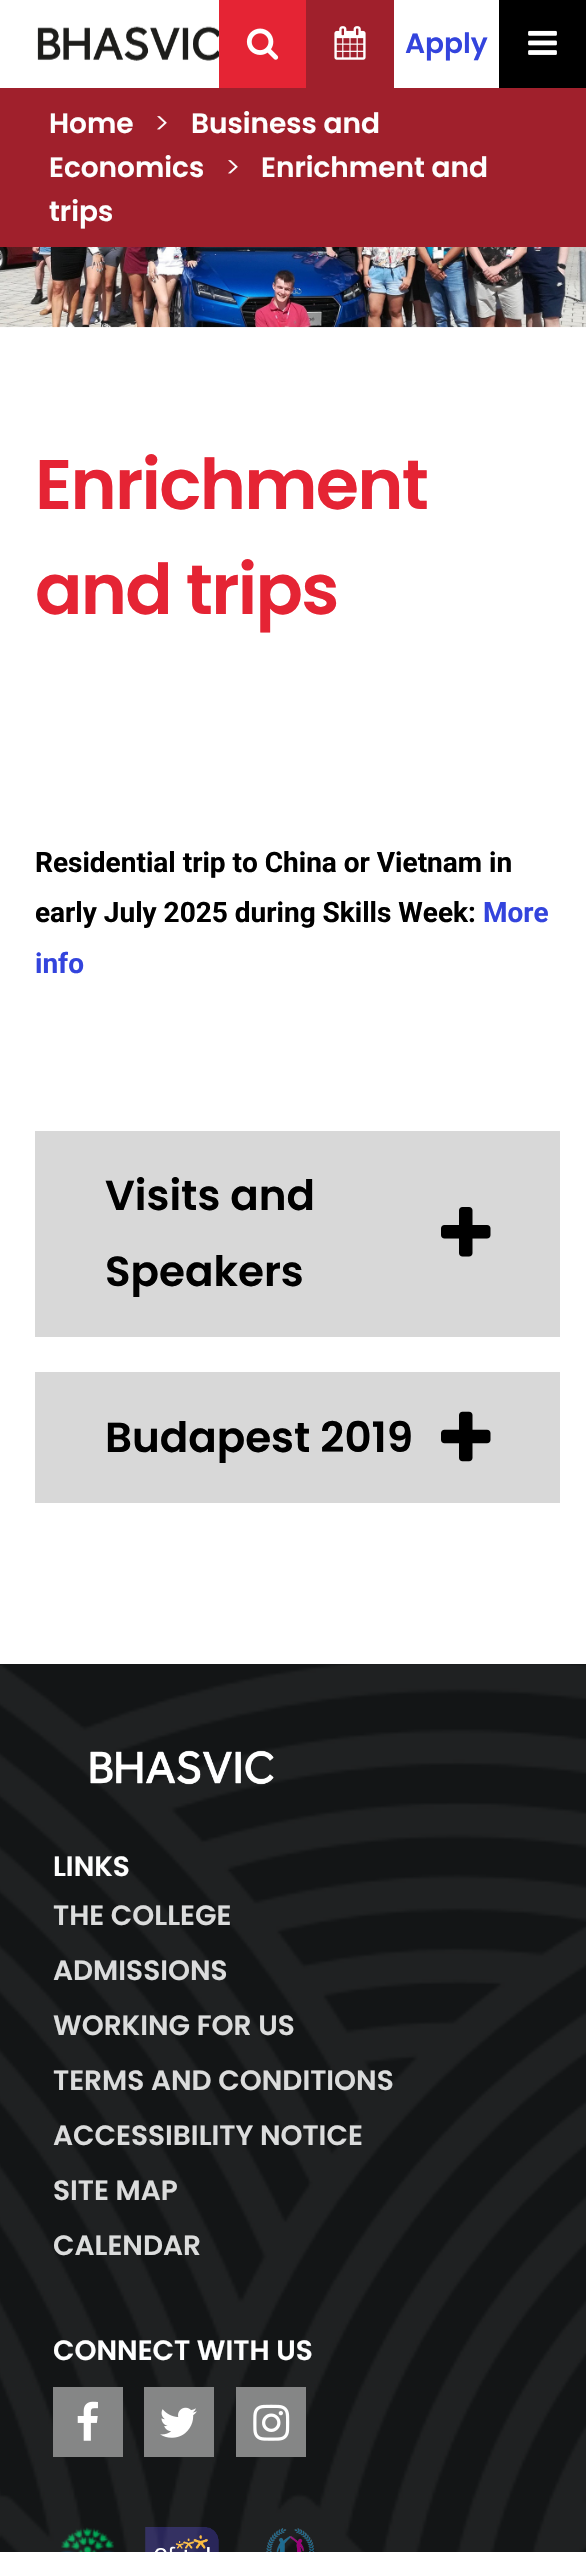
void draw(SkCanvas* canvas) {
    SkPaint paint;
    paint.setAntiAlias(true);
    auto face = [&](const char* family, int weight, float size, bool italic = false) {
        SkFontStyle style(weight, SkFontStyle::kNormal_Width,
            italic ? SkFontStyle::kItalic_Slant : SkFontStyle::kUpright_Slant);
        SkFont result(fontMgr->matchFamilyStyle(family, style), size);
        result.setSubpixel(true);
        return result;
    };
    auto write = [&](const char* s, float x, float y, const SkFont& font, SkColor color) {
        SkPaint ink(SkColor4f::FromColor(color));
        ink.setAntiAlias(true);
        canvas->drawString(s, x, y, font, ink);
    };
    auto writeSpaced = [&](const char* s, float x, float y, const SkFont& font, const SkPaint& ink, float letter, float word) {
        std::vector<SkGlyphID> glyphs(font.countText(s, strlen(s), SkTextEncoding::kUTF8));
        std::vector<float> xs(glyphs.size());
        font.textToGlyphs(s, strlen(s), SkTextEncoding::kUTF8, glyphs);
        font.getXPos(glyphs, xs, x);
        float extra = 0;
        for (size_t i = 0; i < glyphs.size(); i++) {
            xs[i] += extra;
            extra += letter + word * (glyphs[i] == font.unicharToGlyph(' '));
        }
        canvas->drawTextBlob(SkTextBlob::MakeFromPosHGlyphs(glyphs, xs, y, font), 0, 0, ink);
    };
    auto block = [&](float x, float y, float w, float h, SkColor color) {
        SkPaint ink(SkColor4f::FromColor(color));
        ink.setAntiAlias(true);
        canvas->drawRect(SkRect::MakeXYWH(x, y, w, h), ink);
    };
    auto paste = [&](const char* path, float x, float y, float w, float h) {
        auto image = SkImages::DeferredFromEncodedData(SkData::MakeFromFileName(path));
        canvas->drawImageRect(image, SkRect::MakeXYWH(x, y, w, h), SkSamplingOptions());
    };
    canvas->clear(SK_ColorWHITE);
    paste("pic1.png", 37, 26, 182, 35);
    block(219, 0, 87, 88, SkColorSetRGB(229, 36, 52));
    paste("pic2.png", 246, 28, 33, 32);
    block(306, 0, 88, 88, SkColorSetRGB(160, 32, 44));
    paste("pic3.png", 334, 26, 32, 34);
    auto kFont1 = face("Poppins", 600, 28);
    write("Apply", 405, 53, kFont1, SkColorSetRGB(51, 68, 221));
    block(499, 0, 87, 88, SK_ColorBLACK);
    paste("pic4.png", 528, 30, 29, 25);
    block(0, 88, 586, 159, SkColorSetRGB(160, 32, 44));
    write("Home", 49, 133, kFont1, SkColorSetRGB(254, 254, 254));
    auto kFont2 = face("Poppins", 300, 28);
    write(">", 155, 133, kFont2, SkColorSetRGB(254, 254, 254));
    write("Business and", 191, 133, kFont1, SkColorSetRGB(254, 254, 254));
    write("Economics", 49, 177, kFont1, SkColorSetRGB(254, 254, 254));
    write(">", 226, 177, kFont2, SkColorSetRGB(254, 254, 254));
    write("Enrichment and", 261, 177, kFont1, SkColorSetRGB(254, 254, 254));
    write("trips", 49, 221, kFont1, SkColorSetRGB(254, 254, 254));
    paste("pic5.png", 0, 247, 586, 81);
    auto kFont3 = face("Poppins", 600, 70);
    paint.setColor(SkColorSetRGB(229, 36, 52));
    writeSpaced("Enrichment", 35, 509, kFont3, paint, -1.75f, 0);
    writeSpaced("and trips", 35, 614, kFont3, paint, -1.75f, 0);
    auto kFont4 = face("Roboto", 700, 28);
    write("Residential trip to China or Vietnam in", 35, 872, kFont4, SK_ColorBLACK);
    write("early July 2025 during Skills Week:", 35, 922, kFont4, SK_ColorBLACK);
    write("More", 483, 922, kFont4, SkColorSetRGB(51, 68, 221));
    write("info", 35, 973, kFont4, SkColorSetRGB(51, 68, 221));
    block(35, 1131, 525, 206, SkColorSetRGB(216, 216, 216));
    auto kFont5 = face("Poppins", 600, 42);
    write("Visits and", 105, 1210, kFont5, SK_ColorBLACK);
    paste("pic6.png", 441, 1207, 50, 50);
    write("Speakers", 105, 1286, kFont5, SK_ColorBLACK);
    block(35, 1372, 525, 131, SkColorSetRGB(216, 216, 216));
    write("Budapest 2019", 105, 1452, kFont5, SK_ColorBLACK);
    paste("pic7.png", 441, 1411, 50, 51);
    block(0, 1664, 586, 888, SkColorSetRGB(19, 21, 22));
    write("LINKS", 53, 1876, kFont1, SkColorSetRGB(254, 254, 254));
    write("CONNECT WITH US", 53, 2360, kFont1, SkColorSetRGB(254, 254, 254));
    paste("pic13.png", 61, 2527, 53, 25);
    paste("pic14.png", 145, 2527, 74, 25);
    paste("pic15.png", 266, 2528, 49, 24);
    paste("pic8.png", 0, 1664, 586, 888);
    paste("pic9.png", 90, 1750, 184, 35);
    write("THE COLLEGE", 53, 1925, kFont1, SkColorSetRGB(219, 220, 220));
    write("ADMISSIONS", 53, 1980, kFont1, SkColorSetRGB(219, 220, 220));
    write("WORKING FOR US", 53, 2035, kFont1, SkColorSetRGB(219, 220, 220));
    write("TERMS AND CONDITIONS", 53, 2090, kFont1, SkColorSetRGB(219, 220, 220));
    write("ACCESSIBILITY NOTICE", 53, 2145, kFont1, SkColorSetRGB(219, 220, 220));
    write("SITE MAP", 53, 2200, kFont1, SkColorSetRGB(219, 220, 220));
    write("CALENDAR", 53, 2255, kFont1, SkColorSetRGB(219, 220, 220));
    block(53, 2387, 70, 70, SkColorSetRGB(133, 134, 134));
    paste("pic10.png", 77, 2401, 21, 40);
    block(144, 2387, 70, 70, SkColorSetRGB(133, 134, 134));
    paste("pic11.png", 160, 2407, 37, 31);
    block(236, 2387, 70, 70, SkColorSetRGB(133, 134, 134));
    paste("pic12.png", 253, 2404, 37, 37);
}
